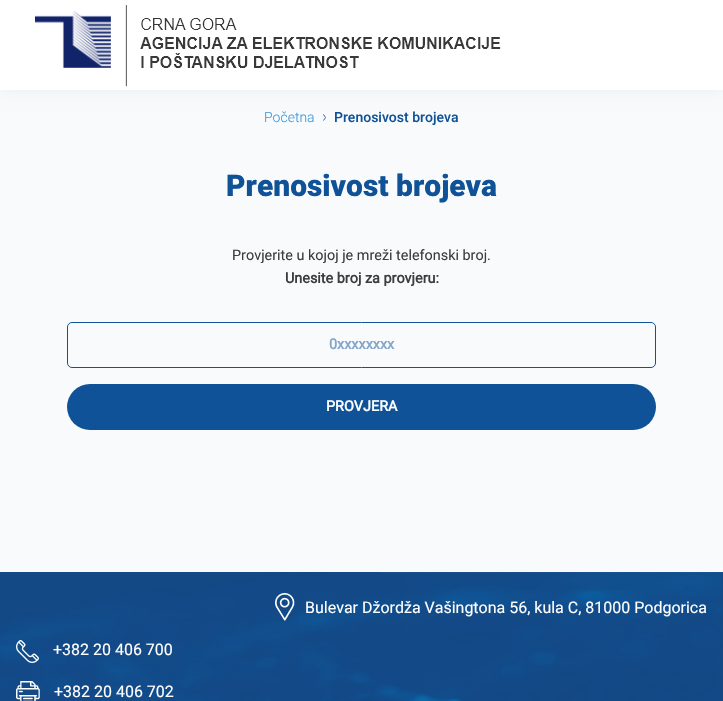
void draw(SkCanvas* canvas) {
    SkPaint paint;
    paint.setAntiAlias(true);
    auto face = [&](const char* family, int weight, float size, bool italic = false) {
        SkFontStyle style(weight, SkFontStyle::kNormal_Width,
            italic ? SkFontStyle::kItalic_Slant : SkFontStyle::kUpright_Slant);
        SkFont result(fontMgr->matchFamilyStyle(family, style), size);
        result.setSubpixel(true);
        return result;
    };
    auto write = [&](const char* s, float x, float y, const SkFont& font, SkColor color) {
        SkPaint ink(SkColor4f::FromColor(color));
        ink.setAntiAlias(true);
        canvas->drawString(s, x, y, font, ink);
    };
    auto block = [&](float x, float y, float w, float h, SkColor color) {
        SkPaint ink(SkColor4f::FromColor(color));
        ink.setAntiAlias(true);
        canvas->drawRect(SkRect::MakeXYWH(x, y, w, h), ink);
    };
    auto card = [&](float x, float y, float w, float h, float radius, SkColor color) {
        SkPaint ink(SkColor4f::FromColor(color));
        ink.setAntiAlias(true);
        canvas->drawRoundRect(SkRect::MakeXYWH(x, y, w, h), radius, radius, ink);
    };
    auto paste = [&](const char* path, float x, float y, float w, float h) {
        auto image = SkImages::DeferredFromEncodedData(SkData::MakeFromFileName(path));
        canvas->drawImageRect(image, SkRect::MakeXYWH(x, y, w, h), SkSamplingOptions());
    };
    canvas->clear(SkColorSetRGB(248, 250, 252));
    paint.setColor(SkColorSetARGB(13, 0, 0, 0));
    paint.setMaskFilter(SkMaskFilter::MakeBlur(kNormal_SkBlurStyle, 7.5f));
    canvas->drawRect(SkRect::MakeXYWH(0, 0, 723, 90), paint);
    paint.setMaskFilter(nullptr);
    block(0, 0, 723, 90, SK_ColorWHITE);
    paste("pic1.png", 35, 5, 466, 82);
    auto kFont1 = face("Roboto", 300, 14);
    write("Početna", 264, 122, kFont1, SkColorSetRGB(60, 153, 220));
    paste("pic2.png", 323, 114, 3, 7);
    auto kFont2 = face("Roboto", 500, 14);
    write("Prenosivost brojeva", 334, 122, kFont2, SkColorSetRGB(15, 82, 152));
    auto kFont3 = face("Roboto", 900, 30);
    write("Prenosivost brojeva", 226, 196, kFont3, SkColorSetRGB(15, 82, 152));
    auto kFont4 = face("Roboto", 400, 14.4f);
    write("Provjerite u kojoj je mreži telefonski broj.", 232, 260, kFont4, SkColorSetRGB(61, 61, 61));
    auto kFont5 = face("Roboto", 700, 14.4f);
    write("Unesite broj za provjeru:", 285, 283, kFont5, SkColorSetRGB(61, 61, 61));
    paint.setStyle(SkPaint::kStroke_Style);
    paint.setStrokeWidth(1);
    paint.setColor(SkColorSetRGB(15, 82, 152));
    canvas->drawRoundRect(SkRect::MakeXYWH(67.5f, 322.5f, 588, 45), 4.5f, 4.5f, paint);
    write("0xxxxxxxx", 329, 349, kFont5, SkColorSetRGB(132, 166, 202));
    card(67, 384, 589, 46, 23, SkColorSetRGB(15, 82, 152));
    write("PROVJERA", 326, 411, kFont5, SK_ColorWHITE);
    block(720, 572, 3, 129, SkColorSetRGB(18, 72, 132));
    paste("pic3.png", 0, 572, 723, 129);
    paste("pic4.png", 275, 593, 20, 28);
    auto kFont6 = face("Roboto", 400, 16);
    write("Bulevar Džordža Vašingtona 56, kula C, 81000 Podgorica", 305, 613, kFont6, SK_ColorWHITE);
    paste("pic5.png", 16, 640, 23, 23);
    write("+382 20 406 700", 53, 655, kFont6, SK_ColorWHITE);
    paste("pic6.png", 16, 681, 24, 20);
    write("+382 20 406 702", 54, 697, kFont6, SK_ColorWHITE);
}
